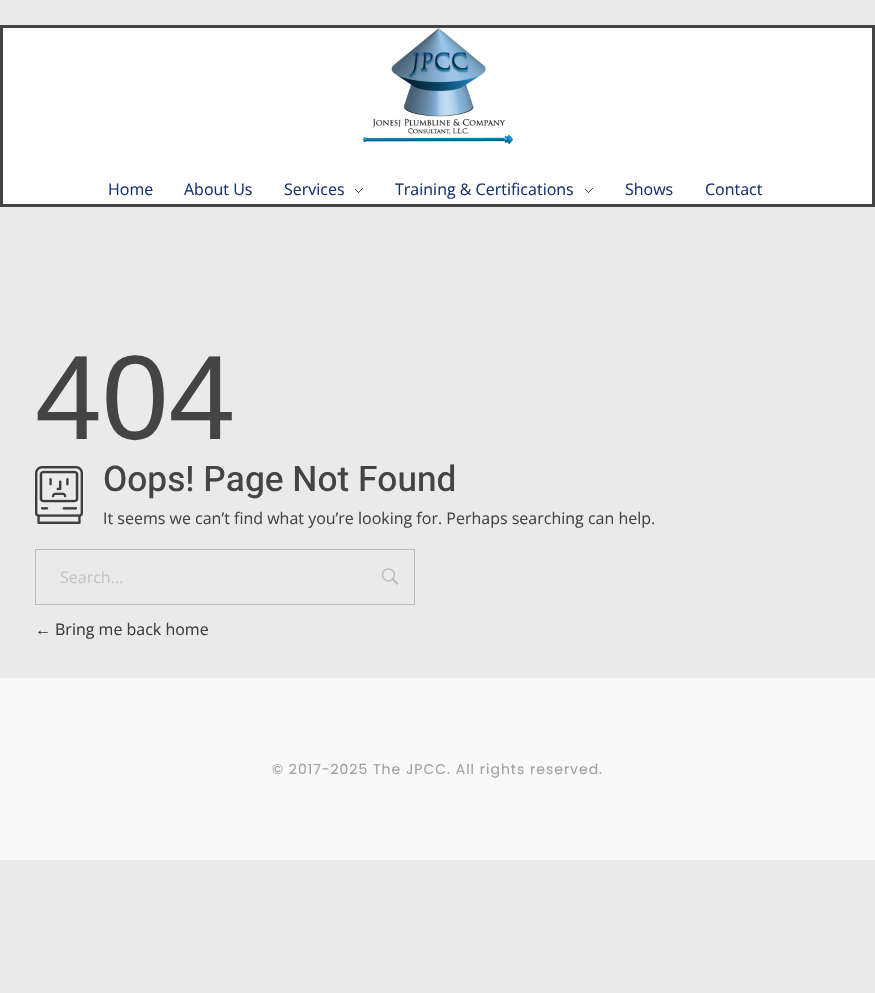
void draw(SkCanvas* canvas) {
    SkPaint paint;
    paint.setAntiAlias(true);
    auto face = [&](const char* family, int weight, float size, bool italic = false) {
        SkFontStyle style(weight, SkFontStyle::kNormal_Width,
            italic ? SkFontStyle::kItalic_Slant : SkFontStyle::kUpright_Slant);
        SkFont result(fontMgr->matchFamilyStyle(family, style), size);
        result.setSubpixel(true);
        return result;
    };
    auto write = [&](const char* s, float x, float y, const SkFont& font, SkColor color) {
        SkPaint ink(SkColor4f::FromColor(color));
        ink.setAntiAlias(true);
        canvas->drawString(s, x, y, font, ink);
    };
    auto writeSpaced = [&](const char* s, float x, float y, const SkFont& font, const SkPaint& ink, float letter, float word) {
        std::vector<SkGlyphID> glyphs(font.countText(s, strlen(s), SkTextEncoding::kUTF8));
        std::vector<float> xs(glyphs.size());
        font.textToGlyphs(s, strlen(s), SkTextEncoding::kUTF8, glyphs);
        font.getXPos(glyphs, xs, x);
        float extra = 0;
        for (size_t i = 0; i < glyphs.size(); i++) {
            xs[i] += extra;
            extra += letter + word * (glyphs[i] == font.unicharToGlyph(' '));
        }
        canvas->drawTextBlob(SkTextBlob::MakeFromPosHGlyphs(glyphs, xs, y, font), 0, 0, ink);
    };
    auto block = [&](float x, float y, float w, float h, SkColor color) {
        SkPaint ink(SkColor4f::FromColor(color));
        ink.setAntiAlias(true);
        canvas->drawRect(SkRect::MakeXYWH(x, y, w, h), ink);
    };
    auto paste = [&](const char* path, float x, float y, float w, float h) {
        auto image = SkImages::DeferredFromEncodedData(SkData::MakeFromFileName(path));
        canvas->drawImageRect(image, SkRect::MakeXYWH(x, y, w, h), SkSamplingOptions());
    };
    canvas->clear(SkColorSetRGB(234, 234, 234));
    paint.setColor(SK_ColorWHITE);
    canvas->drawRect(SkRect::MakeXYWH(1.5f, 26.5f, 872, 179), paint);
    paint.setStyle(SkPaint::kStroke_Style);
    paint.setStrokeWidth(3);
    paint.setColor(SkColorSetRGB(68, 68, 68));
    canvas->drawRect(SkRect::MakeXYWH(1.5f, 26.5f, 872, 179), paint);
    paste("pic1.png", 363, 28, 150, 116);
    auto kFont1 = face("Open Sans", 400, 16);
    write("Home", 108, 195, kFont1, SkColorSetRGB(24, 51, 114));
    write("About Us", 184, 195, kFont1, SkColorSetRGB(24, 51, 114));
    write("Services", 284, 195, kFont1, SkColorSetRGB(24, 51, 114));
    paste("pic2.png", 355, 188, 8, 5);
    write("Training & Certifications", 395, 195, kFont1, SkColorSetRGB(24, 51, 114));
    paste("pic2.png", 585, 188, 8, 5);
    write("Shows", 625, 195, kFont1, SkColorSetRGB(24, 51, 114));
    write("Contact", 705, 195, kFont1, SkColorSetRGB(24, 51, 114));
    auto kFont2 = face("Liberation Sans", 400, 120);
    write("404", 35, 439, kFont2, SkColorSetRGB(68, 68, 68));
    paste("pic3.png", 35, 466, 48, 58);
    auto kFont3 = face("Heebo", 500, 35.25f);
    write("Oops! Page Not Found", 103, 491, kFont3, SkColorSetRGB(68, 68, 68));
    write("It seems we can’t find what you’re looking for. Perhaps searching can help.", 103, 524, kFont1, SkColorSetRGB(68, 68, 68));
    paint.setStrokeWidth(1);
    paint.setColor(SkColorSetRGB(187, 187, 187));
    canvas->drawRect(SkRect::MakeXYWH(35.5f, 549.5f, 379, 55), paint);
    write("Search...", 60, 583, kFont1, SkColorSetRGB(197, 197, 197));
    paste("pic4.png", 381, 568, 18, 17);
    auto kFont4 = face("Liberation Sans", 400, 16);
    write("←", 35, 635, kFont4, SkColorSetRGB(61, 61, 61));
    write("Bring me back home", 55, 635, kFont1, SkColorSetRGB(61, 61, 61));
    block(0, 678, 875, 182, SkColorSetRGB(249, 249, 249));
    auto kFont5 = face("Poppins", 400, 14);
    paint.setStyle(SkPaint::kFill_Style);
    paint.setColor(SkColorSetRGB(160, 160, 160));
    writeSpaced("© 2017-2025 The JPCC. All rights reserved.", 272, 774, kFont5, paint, 1, 0);
}
